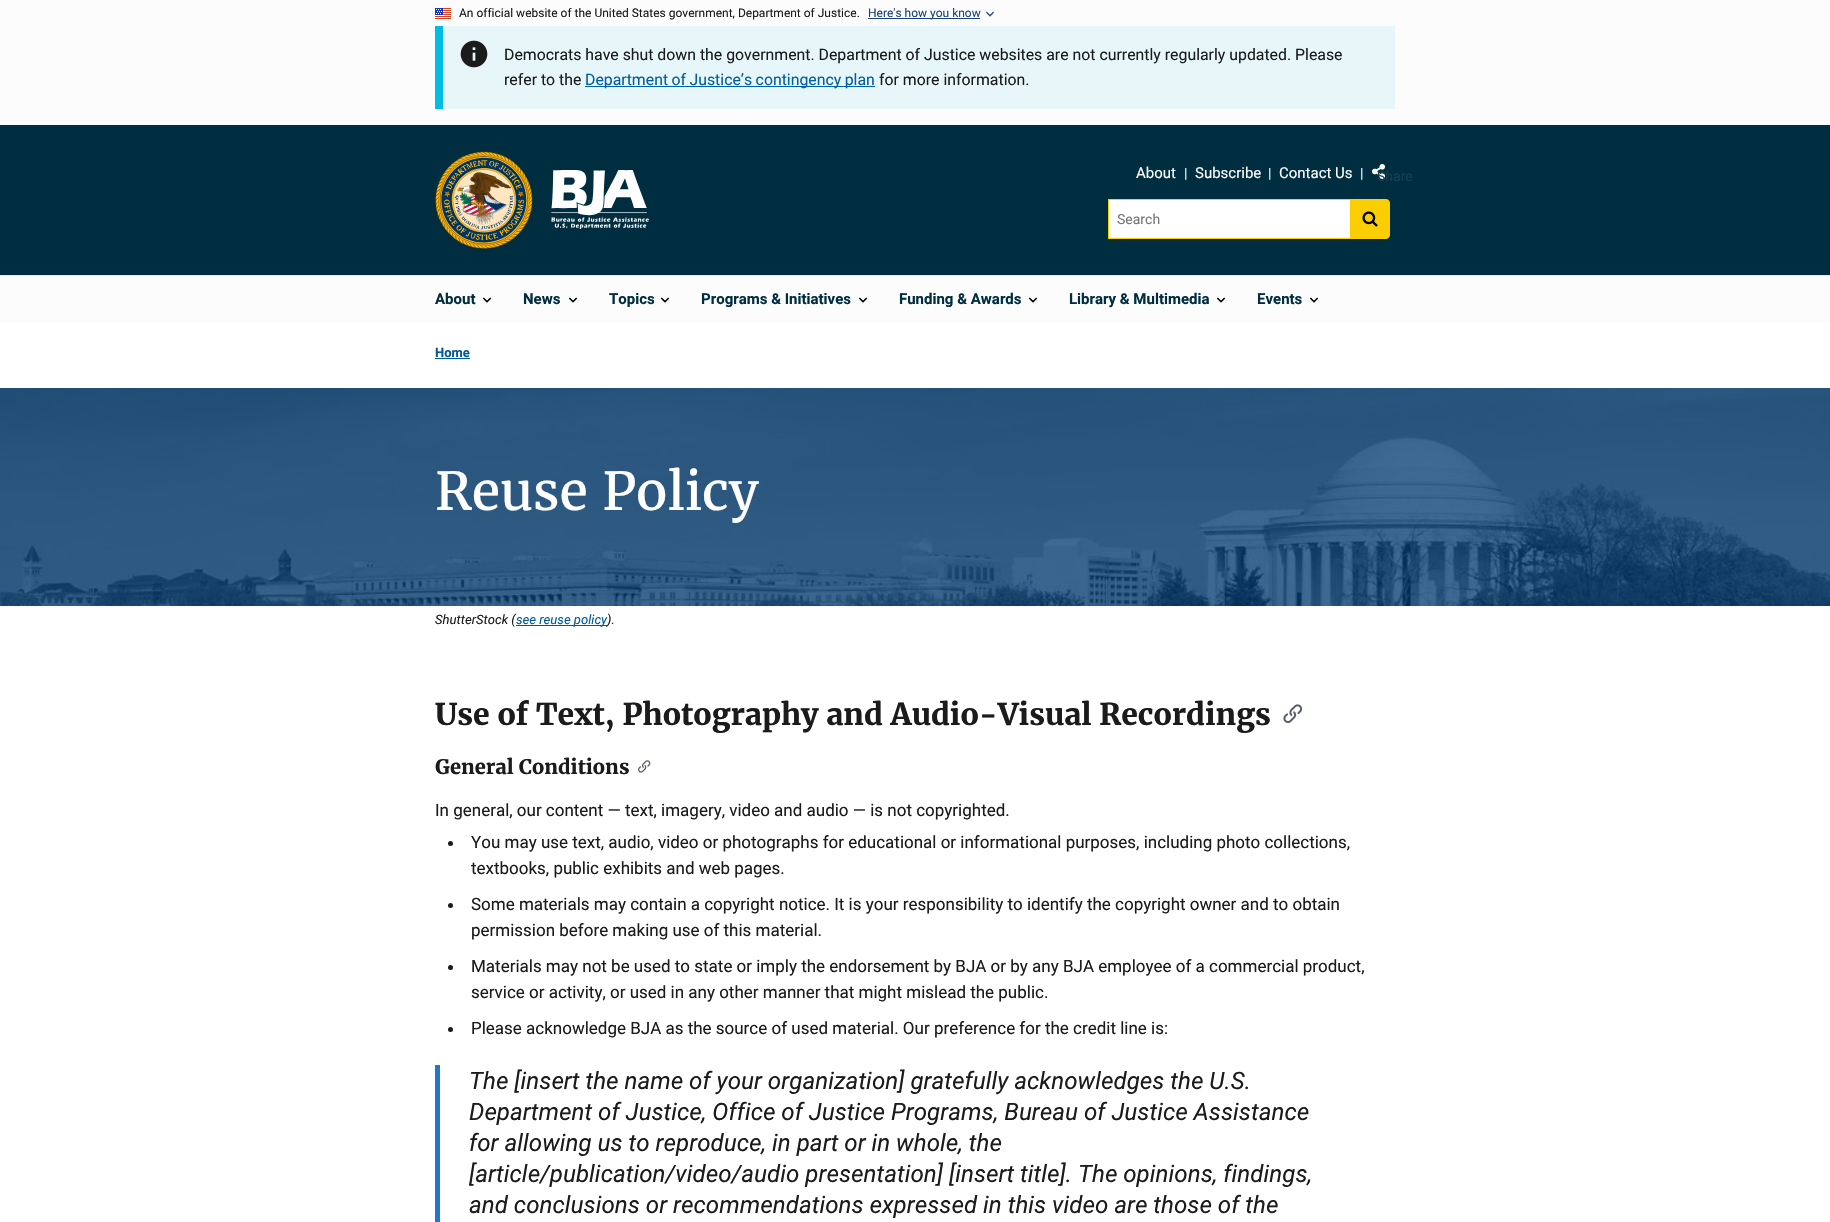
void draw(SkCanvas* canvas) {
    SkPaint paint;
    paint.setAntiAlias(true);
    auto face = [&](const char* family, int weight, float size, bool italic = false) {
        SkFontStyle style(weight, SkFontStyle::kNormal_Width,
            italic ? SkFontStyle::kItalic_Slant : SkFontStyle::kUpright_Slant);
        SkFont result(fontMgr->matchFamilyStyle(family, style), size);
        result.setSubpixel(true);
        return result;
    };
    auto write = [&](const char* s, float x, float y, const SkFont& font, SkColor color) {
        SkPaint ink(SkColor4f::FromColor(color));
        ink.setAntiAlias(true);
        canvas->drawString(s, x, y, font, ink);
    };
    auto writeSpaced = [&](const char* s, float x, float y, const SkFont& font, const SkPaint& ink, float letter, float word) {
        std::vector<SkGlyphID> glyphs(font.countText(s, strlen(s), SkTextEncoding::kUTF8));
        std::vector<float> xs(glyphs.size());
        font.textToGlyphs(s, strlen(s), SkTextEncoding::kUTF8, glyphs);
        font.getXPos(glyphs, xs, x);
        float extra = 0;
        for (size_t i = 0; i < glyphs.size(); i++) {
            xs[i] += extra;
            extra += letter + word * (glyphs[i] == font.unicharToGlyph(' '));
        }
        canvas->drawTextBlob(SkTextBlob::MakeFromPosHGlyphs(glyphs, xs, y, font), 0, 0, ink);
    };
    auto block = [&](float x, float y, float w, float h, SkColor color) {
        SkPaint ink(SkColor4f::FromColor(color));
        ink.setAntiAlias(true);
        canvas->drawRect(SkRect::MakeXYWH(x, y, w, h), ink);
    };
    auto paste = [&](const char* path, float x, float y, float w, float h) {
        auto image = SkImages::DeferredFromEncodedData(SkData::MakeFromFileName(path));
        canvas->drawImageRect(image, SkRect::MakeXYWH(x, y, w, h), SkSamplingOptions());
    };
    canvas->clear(SK_ColorWHITE);
    block(0, 0, 1830, 125, SkColorSetRGB(252, 252, 252));
    paste("pic1.png", 435, 8, 16, 11);
    auto kFont1 = face("Roboto", 400, 12);
    write("An official website of the United States government, Department of Justice.", 459, 17, kFont1, SkColorSetRGB(27, 27, 27));
    block(868, 18, 112, 1, SkColorSetRGB(26, 68, 128));
    write("Here's how you know", 868, 17, kFont1, SkColorSetRGB(26, 68, 128));
    paste("pic2.png", 986, 11, 8, 6);
    block(443, 26, 952, 83, SkColorSetRGB(231, 246, 248));
    block(435, 26, 8, 83, SkColorSetRGB(0, 189, 227));
    paste("pic3.png", 460, 40, 28, 28);
    auto kFont2 = face("Roboto", 400, 15.85f);
    write("Democrats have shut down the government. Department of Justice websites are not currently regularly updated. Please", 504, 60, kFont2, SkColorSetRGB(27, 27, 27));
    write("refer to the", 504, 85, kFont2, SkColorSetRGB(27, 27, 27));
    block(585, 86, 290, 1, SkColorSetRGB(0, 94, 162));
    paint.setColor(SkColorSetRGB(0, 94, 162));
    writeSpaced("Department of Justice’s contingency plan", 585, 85, kFont2, paint, 0, -0.5f);
    write("for more information.", 879, 85, kFont2, SkColorSetRGB(27, 27, 27));
    block(0, 125, 1830, 150, SkColorSetRGB(0, 45, 63));
    paste("pic4.png", 435, 151, 98, 98);
    paste("pic5.png", 551, 170, 98, 59);
    block(0, 276, 1830, 47, SkColorSetRGB(252, 252, 252));
    block(0, 275, 1830, 1, SkColorSetRGB(237, 239, 240));
    auto kFont3 = face("Roboto", 400, 15);
    write("About", 1136, 178, kFont3, SK_ColorWHITE);
    auto kFont4 = face("Roboto", 400, 14);
    write("|", 1184, 178, kFont4, SkColorSetRGB(237, 239, 240));
    write("Subscribe", 1195, 178, kFont3, SK_ColorWHITE);
    write("|", 1268, 178, kFont4, SkColorSetRGB(237, 239, 240));
    write("Contact Us", 1279, 178, kFont3, SK_ColorWHITE);
    write("|", 1360, 178, kFont4, SkColorSetRGB(237, 239, 240));
    paste("pic6.png", 1372, 164, 13, 15);
    write("Share", 1377, 181, kFont4, SkColorSetRGB(22, 63, 80));
    block(1109, 200, 241, 38, SK_ColorWHITE);
    block(1108, 199, 242, 1, SkColorSetRGB(250, 206, 0));
    block(1108, 238, 242, 1, SkColorSetRGB(250, 206, 0));
    block(1108, 199, 1, 40, SkColorSetRGB(250, 206, 0));
    write("Search", 1117, 224, kFont4, SkColorSetRGB(117, 117, 117));
    paint.setColor(SkColorSetRGB(250, 206, 0));
    canvas->drawPath(SkPathBuilder().moveTo(1350, 199).lineTo(1386, 199).cubicTo(1388, 199, 1390, 201, 1390, 203).lineTo(1390, 235).cubicTo(1390, 237, 1388, 239, 1386, 239).lineTo(1350, 239).close().detach(), paint);
    paste("pic7.png", 1362, 211, 16, 16);
    paste("pic8.png", 483, 297, 8, 6);
    auto kFont5 = face("Roboto", 700, 15);
    write("About", 435, 304, kFont5, SkColorSetRGB(0, 45, 63));
    paste("pic9.png", 483, 297, 8, 6);
    paste("pic8.png", 569, 297, 8, 6);
    write("News", 523, 304, kFont5, SkColorSetRGB(0, 45, 63));
    paste("pic9.png", 569, 297, 8, 6);
    paste("pic8.png", 661, 297, 8, 6);
    write("Topics", 609, 304, kFont5, SkColorSetRGB(0, 45, 63));
    paste("pic9.png", 661, 297, 8, 6);
    paste("pic8.png", 859, 297, 8, 6);
    write("Programs & Initiatives", 701, 304, kFont5, SkColorSetRGB(0, 45, 63));
    paste("pic9.png", 859, 297, 8, 6);
    paste("pic8.png", 1029, 297, 8, 6);
    write("Funding & Awards", 899, 304, kFont5, SkColorSetRGB(0, 45, 63));
    paste("pic9.png", 1029, 297, 8, 6);
    paste("pic8.png", 1217, 297, 8, 6);
    write("Library & Multimedia", 1069, 304, kFont5, SkColorSetRGB(0, 45, 63));
    paste("pic9.png", 1217, 297, 8, 6);
    paste("pic8.png", 1310, 297, 8, 6);
    write("Events", 1257, 304, kFont5, SkColorSetRGB(0, 45, 63));
    paste("pic9.png", 1310, 297, 8, 6);
    auto kFont6 = face("Roboto", 700, 13);
    write("Home", 435, 357, kFont6, SkColorSetRGB(0, 89, 153));
    block(435, 358, 35, 1, SkColorSetRGB(0, 89, 153));
    paste("pic10.png", 0, 388, 1830, 218);
    auto kFont7 = face("Merriweather", 400, 52);
    write("Reuse Policy", 435, 510, kFont7, SK_ColorWHITE);
    auto kFont8 = face("Roboto", 400, 13, true);
    write("ShutterStock (", 435, 624, kFont8, SkColorSetRGB(27, 27, 27));
    block(516, 625, 91, 1, SkColorSetRGB(0, 89, 153));
    write("see reuse policy", 516, 624, kFont8, SkColorSetRGB(0, 89, 153));
    write(").", 607, 624, kFont8, SkColorSetRGB(27, 27, 27));
    auto kFont9 = face("Merriweather", 700, 30);
    write("Use of Text, Photography and Audio-Visual Recordings", 435, 725, kFont9, SkColorSetRGB(27, 27, 27));
    paste("pic11.png", 1283, 704, 20, 19);
    auto kFont10 = face("Merriweather", 700, 20);
    write("General Conditions", 435, 774, kFont10, SkColorSetRGB(27, 27, 27));
    paste("pic12.png", 638, 760, 13, 13);
    auto kFont11 = face("Roboto", 400, 17);
    write("In general, our content — text, imagery, video and audio — is not copyrighted.", 435, 816, kFont11, SkColorSetRGB(27, 27, 27));
    paint.setColor(SkColorSetRGB(27, 27, 27));
    canvas->drawCircle(450.5f, 843.5f, 2.5f, paint);
    write("You may use text, audio, video or photographs for educational or informational purposes, including photo collections,", 471, 848, kFont11, SkColorSetRGB(27, 27, 27));
    write("textbooks, public exhibits and web pages.", 471, 874, kFont11, SkColorSetRGB(27, 27, 27));
    canvas->drawCircle(450.5f, 905.5f, 2.5f, paint);
    write("Some materials may contain a copyright notice. It is your responsibility to identify the copyright owner and to obtain", 471, 910, kFont11, SkColorSetRGB(27, 27, 27));
    write("permission before making use of this material.", 471, 936, kFont11, SkColorSetRGB(27, 27, 27));
    canvas->drawCircle(450.5f, 967.5f, 2.5f, paint);
    write("Materials may not be used to state or imply the endorsement by BJA or by any BJA employee of a commercial product,", 471, 972, kFont11, SkColorSetRGB(27, 27, 27));
    write("service or activity, or used in any other manner that might mislead the public.", 471, 998, kFont11, SkColorSetRGB(27, 27, 27));
    canvas->drawCircle(450.5f, 1029.5f, 2.5f, paint);
    write("Please acknowledge BJA as the source of used material. Our preference for the credit line is:", 471, 1034, kFont11, SkColorSetRGB(27, 27, 27));
    block(435, 1065, 5, 157, SkColorSetRGB(35, 120, 195));
    auto kFont12 = face("Roboto", 400, 24, true);
    write("The [insert the name of your organization] gratefully acknowledges the U.S.", 469, 1089, kFont12, SkColorSetRGB(27, 27, 27));
    write("Department of Justice, Office of Justice Programs, Bureau of Justice Assistance", 469, 1120, kFont12, SkColorSetRGB(27, 27, 27));
    write("for allowing us to reproduce, in part or in whole, the", 469, 1151, kFont12, SkColorSetRGB(27, 27, 27));
    write("[article/publication/video/audio presentation] [insert title]. The opinions, findings,", 469, 1182, kFont12, SkColorSetRGB(27, 27, 27));
    write("and conclusions or recommendations expressed in this video are those of the", 469, 1213, kFont12, SkColorSetRGB(27, 27, 27));
}
